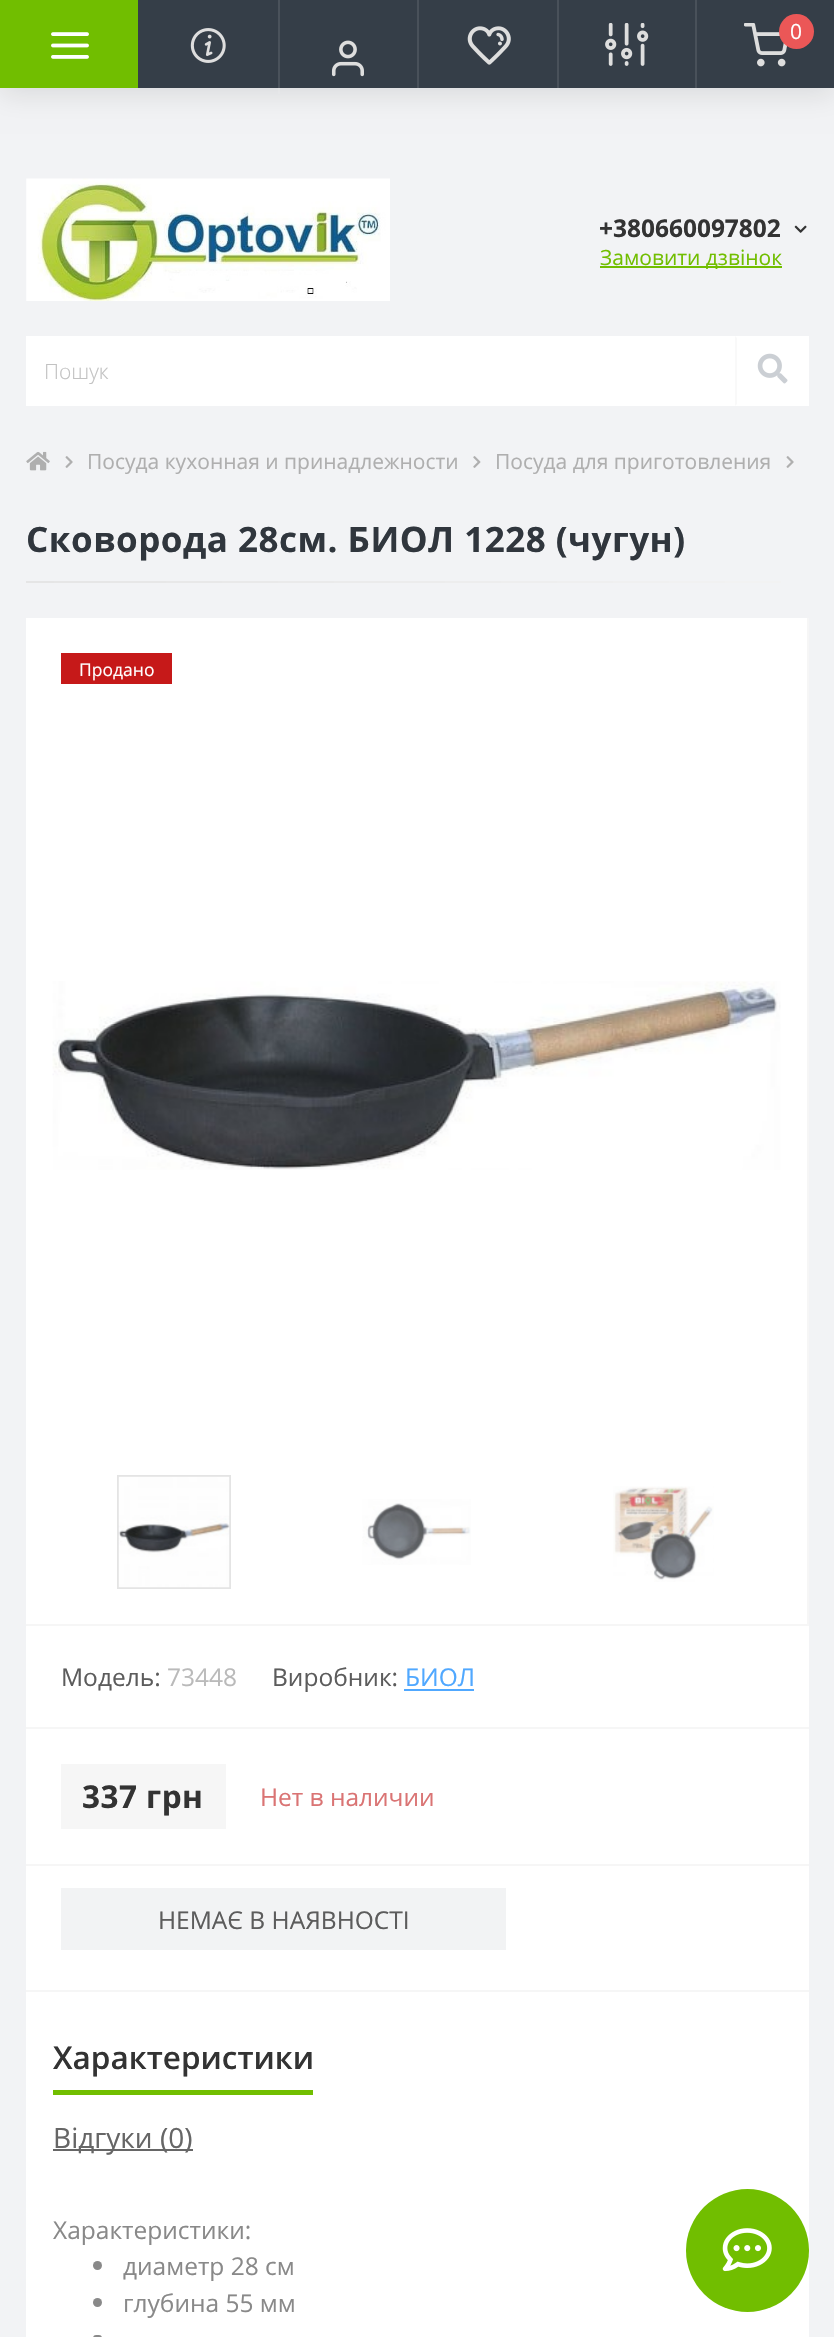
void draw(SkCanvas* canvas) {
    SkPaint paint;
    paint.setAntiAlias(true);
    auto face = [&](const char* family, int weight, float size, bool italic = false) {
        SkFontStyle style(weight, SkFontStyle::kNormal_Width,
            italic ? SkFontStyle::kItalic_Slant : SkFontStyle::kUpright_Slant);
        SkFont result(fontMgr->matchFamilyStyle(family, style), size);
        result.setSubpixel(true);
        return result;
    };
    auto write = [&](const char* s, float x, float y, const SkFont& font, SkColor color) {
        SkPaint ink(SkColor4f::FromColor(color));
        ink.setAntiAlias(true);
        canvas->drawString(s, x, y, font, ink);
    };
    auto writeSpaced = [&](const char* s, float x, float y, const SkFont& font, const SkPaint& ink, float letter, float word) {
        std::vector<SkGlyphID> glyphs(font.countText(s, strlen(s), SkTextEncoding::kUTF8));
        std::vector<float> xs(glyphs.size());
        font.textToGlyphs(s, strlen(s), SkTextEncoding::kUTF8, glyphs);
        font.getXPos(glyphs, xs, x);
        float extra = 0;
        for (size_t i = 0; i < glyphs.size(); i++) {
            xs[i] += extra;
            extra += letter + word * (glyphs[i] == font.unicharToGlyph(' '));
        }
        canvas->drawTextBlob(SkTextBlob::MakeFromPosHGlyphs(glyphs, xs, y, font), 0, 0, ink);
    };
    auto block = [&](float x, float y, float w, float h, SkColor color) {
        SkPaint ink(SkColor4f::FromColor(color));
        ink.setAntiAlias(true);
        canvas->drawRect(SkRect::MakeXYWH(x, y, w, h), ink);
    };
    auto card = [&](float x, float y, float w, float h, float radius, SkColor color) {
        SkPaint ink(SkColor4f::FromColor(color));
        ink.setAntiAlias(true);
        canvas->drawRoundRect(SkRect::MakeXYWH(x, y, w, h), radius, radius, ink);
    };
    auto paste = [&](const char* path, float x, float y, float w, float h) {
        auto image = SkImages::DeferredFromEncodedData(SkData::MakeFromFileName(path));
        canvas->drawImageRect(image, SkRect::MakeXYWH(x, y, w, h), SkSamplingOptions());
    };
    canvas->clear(SkColorSetRGB(242, 243, 245));
    paint.setColor(SkColorSetARGB(26, 0, 0, 0));
    paint.setMaskFilter(SkMaskFilter::MakeBlur(kNormal_SkBlurStyle, 13));
    canvas->drawRect(SkRect::MakeXYWH(0, 7, 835, 88), paint);
    paint.setMaskFilter(nullptr);
    block(138, 0, 696, 88, SkColorSetRGB(53, 62, 72));
    block(0, 0, 138, 88, SkColorSetRGB(113, 190, 0));
    paste("pic1.png", 51, 32, 38, 27);
    paste("pic2.png", 190, 28, 36, 35);
    block(278, 0, 2, 94, SkColorSetARGB(26, 255, 255, 255));
    paste("pic3.png", 331, 40, 33, 37);
    block(417, 0, 2, 88, SkColorSetRGB(73, 81, 90));
    paste("pic4.png", 467, 26, 44, 39);
    block(557, 0, 2, 88, SkColorSetRGB(73, 81, 90));
    paste("pic5.png", 605, 23, 44, 43);
    block(695, 0, 2, 88, SkColorSetRGB(73, 81, 90));
    paste("pic6.png", 744, 23, 43, 44);
    paint.setColor(SkColorSetRGB(235, 87, 87));
    canvas->drawCircle(796.5f, 31.5f, 17.5f, paint);
    auto kFont1 = face("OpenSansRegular", 400, 21);
    write("0", 790, 39, kFont1, SK_ColorWHITE);
    paste("pic7.png", 26, 178, 364, 123);
    auto kFont2 = face("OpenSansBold", 700, 24.5f);
    write("+380660097802", 599, 237, kFont2, SkColorSetRGB(51, 51, 51));
    paste("pic8.png", 794, 225, 13, 8);
    block(600, 266, 182, 2, SkColorSetRGB(113, 190, 0));
    write("Замовити дзвінок", 600, 265, kFont1, SkColorSetRGB(113, 190, 0));
    block(26, 336, 783, 70, SK_ColorWHITE);
    auto kFont3 = face("Open Sans", 300, 21);
    write("Пошук", 44, 379, kFont3, SkColorSetRGB(194, 194, 194));
    paint.setColor(SkColorSetRGB(249, 249, 249));
    canvas->drawPath(SkPathBuilder().moveTo(735, 406).lineTo(735, 336).lineTo(737, 338).lineTo(737, 404).close().detach(), paint);
    paste("pic9.png", 757, 353, 31, 31);
    paste("pic10.png", 26, 451, 24, 20);
    paste("pic11.png", 65, 456, 8, 12);
    write("Посуда кухонная и принадлежности", 87, 469, kFont1, SkColorSetRGB(175, 175, 175));
    paste("pic12.png", 473, 456, 8, 12);
    write("Посуда для приготовления", 495, 469, kFont1, SkColorSetRGB(175, 175, 175));
    paste("pic11.png", 786, 456, 8, 12);
    auto kFont4 = face("OpenSansBold", 700, 35);
    paint.setColor(SkColorSetRGB(48, 54, 61));
    writeSpaced("Сковорода 28см. БИОЛ 1228 (чугун)", 26, 552, kFont4, paint, 0.5f, 0);
    {
        const SkColor colors[] = {SkColorSetRGB(229, 229, 229), SkColorSetRGB(243, 243, 243)};
        const float stops[] = {0, 1};
        const SkPoint ends[] = {{26, 582}, {809, 582}};
        paint.setShader(SkGradientShader::MakeLinear(ends, colors, stops, 2, SkTileMode::kClamp));
        paint.setAlpha(255);
    }
    canvas->drawRect(SkRect::MakeXYWH(26, 581, 755, 2), paint);
    block(26, 618, 783, 1719, SK_ColorWHITE);
    block(26, 1990, 783, 2, SkColorSetRGB(246, 246, 246));
    block(807, 618, 2, 1006, SkColorSetRGB(246, 246, 246));
    block(61, 653, 111, 31, SkColorSetRGB(198, 25, 25));
    auto kFont5 = face("OpenSansRegular", 400, 17.5f);
    write("Продано", 79, 676, kFont5, SK_ColorWHITE);
    paste("pic13.png", 52, 981, 729, 189);
    paint.setStyle(SkPaint::kStroke_Style);
    paint.setStrokeWidth(2);
    paint.setShader(nullptr);
    paint.setColor(SkColorSetRGB(228, 228, 228));
    canvas->drawRect(SkRect::MakeXYWH(118, 1476, 112, 112), paint);
    paste("pic14.png", 118, 1476, 112, 112);
    paste("pic15.png", 362, 1499, 109, 66);
    paste("pic16.png", 613, 1486, 101, 96);
    block(26, 1624, 783, 2, SkColorSetRGB(246, 246, 246));
    block(26, 1727, 783, 2, SkColorSetRGB(246, 246, 246));
    auto kFont6 = face("OpenSansRegular", 400, 24.5f);
    write("Модель:", 61, 1686, kFont6, SkColorSetRGB(92, 92, 92));
    write("73448", 167, 1686, kFont6, SkColorSetRGB(186, 186, 186));
    write("Виробник:", 272, 1686, kFont6, SkColorSetRGB(92, 92, 92));
    write("БИОЛ", 405, 1686, kFont6, SkColorSetRGB(80, 168, 255));
    block(404, 1689, 70, 2, SkColorSetRGB(80, 168, 255));
    block(26, 1864, 783, 2, SkColorSetRGB(246, 246, 246));
    block(61, 1764, 165, 65, SkColorSetRGB(246, 246, 246));
    auto kFont7 = face("OpenSansBold", 700, 31.5f);
    paint.setStyle(SkPaint::kFill_Style);
    paint.setColor(SkColorSetRGB(51, 51, 51));
    writeSpaced("337 грн", 82, 1808, kFont7, paint, 0.5f, 0);
    write("Нет в наличии", 260, 1806, kFont6, SkColorSetRGB(218, 116, 116));
    block(61, 1888, 445, 62, SkColorSetRGB(242, 243, 244));
    write("НЕМАЄ В НАЯВНОСТІ", 158, 1929, kFont6, SkColorSetRGB(92, 92, 92));
    auto kFont8 = face("Open Sans", 600, 31.5f);
    write("Характеристики", 53, 2069, kFont8, SkColorSetRGB(51, 51, 51));
    block(53, 2090, 260, 5, SkColorSetRGB(113, 190, 0));
    block(53, 2149, 140, 2, SkColorSetRGB(102, 102, 102));
    auto kFont9 = face("OpenSansRegular", 400, 28);
    write("Відгуки (0)", 53, 2148, kFont9, SkColorSetRGB(102, 102, 102));
    write("Характеристики:", 53, 2239, kFont6, SkColorSetRGB(137, 137, 137));
    paint.setColor(SkColorSetRGB(137, 137, 137));
    canvas->drawCircle(97.5f, 2265.5f, 4.5f, paint);
    write("диаметр 28 см", 123, 2275, kFont6, SkColorSetRGB(137, 137, 137));
    canvas->drawCircle(97.5f, 2302.5f, 4.5f, paint);
    write("глубина 55 мм", 123, 2312, kFont6, SkColorSetRGB(137, 137, 137));
    card(93, 2335, 9, 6, 4, SkColorSetRGB(137, 137, 137));
    paint.setColor(SkColorSetRGB(113, 190, 0));
    canvas->drawCircle(747.5f, 2250.5f, 61.5f, paint);
    paste("pic17.png", 722, 2228, 50, 44);
}
